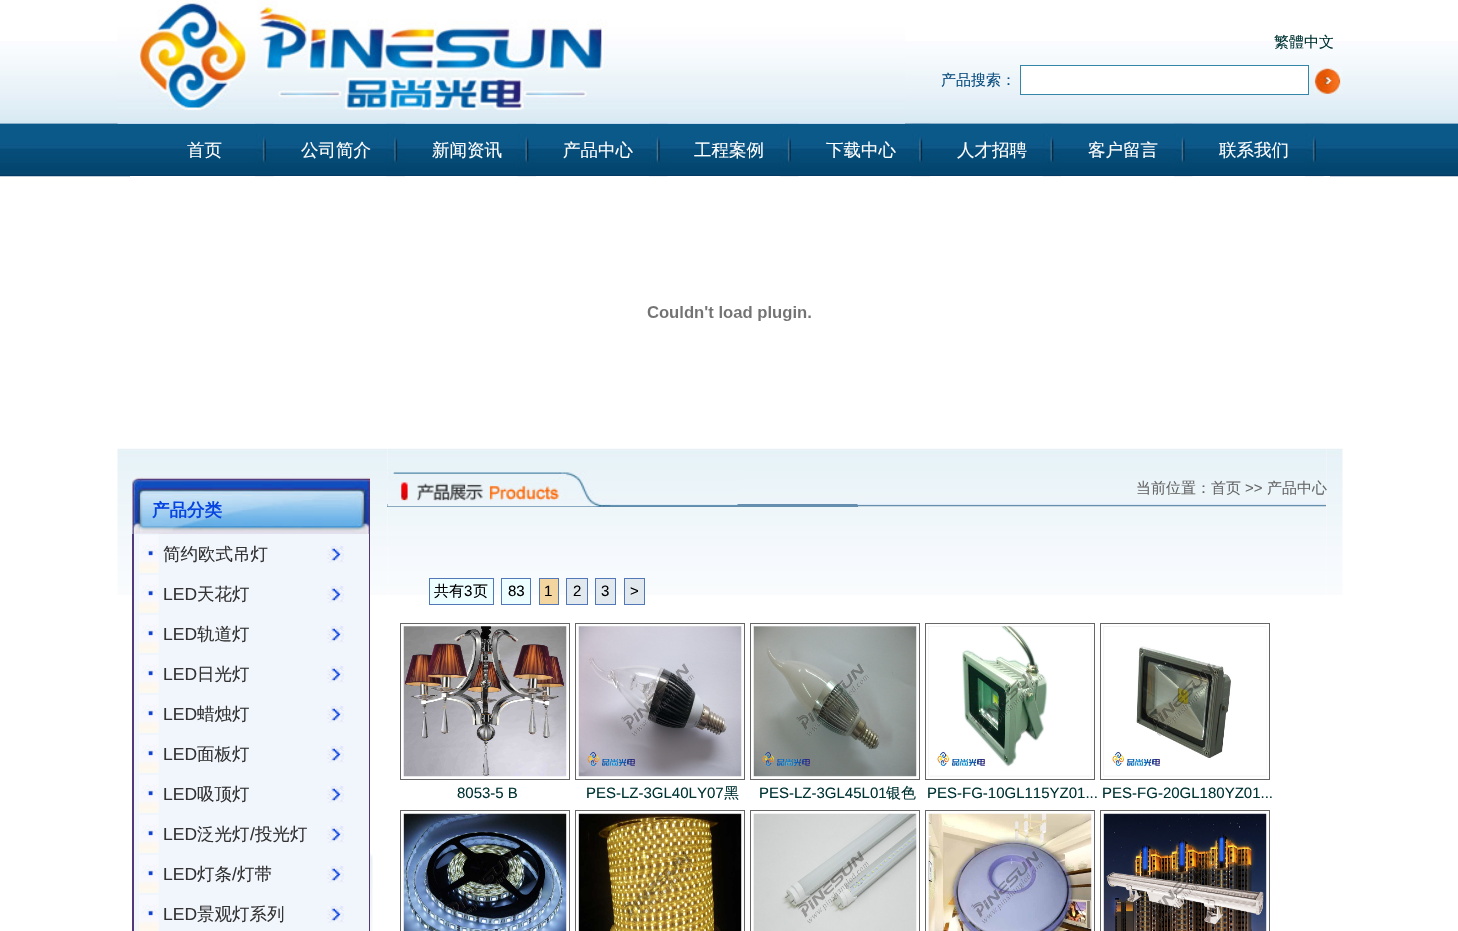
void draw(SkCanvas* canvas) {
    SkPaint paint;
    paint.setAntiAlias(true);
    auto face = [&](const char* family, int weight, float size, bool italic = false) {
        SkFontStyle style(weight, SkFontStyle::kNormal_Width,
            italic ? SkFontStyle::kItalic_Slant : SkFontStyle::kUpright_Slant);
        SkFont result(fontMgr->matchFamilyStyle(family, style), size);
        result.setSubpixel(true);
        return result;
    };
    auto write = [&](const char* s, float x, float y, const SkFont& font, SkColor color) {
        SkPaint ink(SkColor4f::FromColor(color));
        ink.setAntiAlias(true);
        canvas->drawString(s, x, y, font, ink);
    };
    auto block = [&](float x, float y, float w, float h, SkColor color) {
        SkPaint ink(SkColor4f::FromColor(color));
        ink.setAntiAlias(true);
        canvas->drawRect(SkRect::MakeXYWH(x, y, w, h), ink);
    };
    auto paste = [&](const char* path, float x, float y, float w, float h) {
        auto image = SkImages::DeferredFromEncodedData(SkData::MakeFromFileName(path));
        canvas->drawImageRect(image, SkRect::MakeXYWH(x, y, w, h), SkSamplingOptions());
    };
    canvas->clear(SK_ColorWHITE);
    paste("pic1.png", 0, 41, 1458, 83);
    paste("pic4.png", 0, 123, 1458, 54);
    paste("pic2.png", 117, 0, 788, 124);
    auto kFont1 = face("WenQuanYi Zen Hei", 500, 15);
    write("繁體中文", 1274, 47, kFont1, SkColorSetRGB(0, 51, 51));
    write("产品搜索：", 941, 85, kFont1, SkColorSetRGB(10, 78, 127));
    paint.setColor(SK_ColorWHITE);
    canvas->drawRect(SkRect::MakeXYWH(1020.5f, 65.5f, 288, 29), paint);
    paint.setStyle(SkPaint::kStroke_Style);
    paint.setStrokeWidth(1);
    paint.setColor(SkColorSetRGB(51, 134, 168));
    canvas->drawRect(SkRect::MakeXYWH(1020.5f, 65.5f, 288, 29), paint);
    paste("pic3.png", 1314, 67, 29, 27);
    auto kFont2 = face("WenQuanYi Zen Hei", 500, 17.5f);
    write("首页", 187, 156, kFont2, SK_ColorWHITE);
    block(130, 176, 1200, 1, SK_ColorWHITE);
    paste("pic5.png", 255, 123, 19, 54);
    write("公司简介", 301, 156, kFont2, SK_ColorWHITE);
    paste("pic6.png", 386, 123, 19, 54);
    write("新闻资讯", 432, 156, kFont2, SK_ColorWHITE);
    paste("pic7.png", 517, 123, 19, 54);
    write("产品中心", 563, 156, kFont2, SK_ColorWHITE);
    paste("pic8.png", 649, 123, 19, 54);
    write("工程案例", 694, 156, kFont2, SK_ColorWHITE);
    paste("pic5.png", 780, 123, 19, 54);
    write("下载中心", 826, 156, kFont2, SK_ColorWHITE);
    paste("pic9.png", 911, 123, 19, 54);
    write("人才招聘", 957, 156, kFont2, SK_ColorWHITE);
    paste("pic10.png", 1042, 123, 19, 54);
    write("客户留言", 1088, 156, kFont2, SK_ColorWHITE);
    paste("pic11.png", 1174, 123, 19, 54);
    write("联系我们", 1219, 156, kFont2, SK_ColorWHITE);
    paste("pic12.png", 1305, 123, 19, 54);
    paste("pic13.png", 647, 306, 164, 15);
    paste("pic14.png", 117, 448, 271, 147);
    paste("pic15.png", 132, 477, 238, 57);
    auto kFont3 = face("WenQuanYi Zen Hei", 700, 17.5f);
    write("产品分类", 152, 516, kFont3, SkColorSetRGB(6, 67, 225));
    block(134, 534, 235, 397, SkColorSetRGB(241, 245, 252));
    paint.setStyle(SkPaint::kFill_Style);
    paint.setColor(SkColorSetRGB(83, 56, 123));
    canvas->drawPath(SkPathBuilder(SkPathFillType::kEvenOdd).moveTo(132, 534).lineTo(370, 534).lineTo(370, 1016).cubicTo(370, 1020, 367, 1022, 364, 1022).lineTo(139, 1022).cubicTo(135, 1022, 132, 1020, 132, 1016).close().moveTo(134, 534).lineTo(369, 534).lineTo(369, 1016).cubicTo(369, 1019, 367, 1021, 364, 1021).lineTo(139, 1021).cubicTo(136, 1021, 134, 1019, 134, 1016).close().detach(), paint);
    paste("pic16.png", 137, 533, 22, 41);
    block(138, 534, 21, 1, SkColorSetRGB(241, 245, 252));
    block(138, 573, 21, 1, SkColorSetRGB(241, 245, 252));
    block(138, 534, 1, 40, SkColorSetRGB(241, 245, 252));
    write("简约欧式吊灯", 163, 560, kFont2, SkColorSetRGB(51, 51, 51));
    paste("pic17.png", 327, 546, 17, 17);
    paste("pic18.png", 137, 574, 22, 40);
    block(138, 574, 21, 1, SkColorSetRGB(241, 245, 252));
    block(138, 613, 21, 1, SkColorSetRGB(241, 245, 252));
    block(138, 574, 1, 40, SkColorSetRGB(241, 245, 252));
    auto kFont4 = face("Liberation Sans", 400, 17.5f);
    write("LED", 163, 600, kFont4, SkColorSetRGB(51, 51, 51));
    write("天花灯", 197, 600, kFont2, SkColorSetRGB(51, 51, 51));
    paste("pic19.png", 327, 586, 17, 17);
    paste("pic20.png", 137, 614, 22, 40);
    block(138, 614, 21, 1, SkColorSetRGB(241, 245, 252));
    block(138, 653, 21, 1, SkColorSetRGB(241, 245, 252));
    block(138, 614, 1, 40, SkColorSetRGB(241, 245, 252));
    write("LED", 163, 640, kFont4, SkColorSetRGB(51, 51, 51));
    write("轨道灯", 197, 640, kFont2, SkColorSetRGB(51, 51, 51));
    paste("pic17.png", 327, 626, 17, 17);
    paste("pic20.png", 137, 654, 22, 40);
    block(138, 654, 21, 1, SkColorSetRGB(241, 245, 252));
    block(138, 693, 21, 1, SkColorSetRGB(241, 245, 252));
    block(138, 654, 1, 40, SkColorSetRGB(241, 245, 252));
    write("LED", 163, 680, kFont4, SkColorSetRGB(51, 51, 51));
    write("日光灯", 197, 680, kFont2, SkColorSetRGB(51, 51, 51));
    paste("pic17.png", 327, 666, 17, 17);
    paste("pic20.png", 137, 694, 22, 40);
    block(138, 694, 21, 1, SkColorSetRGB(241, 245, 252));
    block(138, 733, 21, 1, SkColorSetRGB(241, 245, 252));
    block(138, 694, 1, 40, SkColorSetRGB(241, 245, 252));
    write("LED", 163, 720, kFont4, SkColorSetRGB(51, 51, 51));
    write("蜡烛灯", 197, 720, kFont2, SkColorSetRGB(51, 51, 51));
    paste("pic17.png", 327, 706, 17, 17);
    paste("pic20.png", 137, 734, 22, 40);
    block(138, 734, 21, 1, SkColorSetRGB(241, 245, 252));
    block(138, 773, 21, 1, SkColorSetRGB(241, 245, 252));
    block(138, 734, 1, 40, SkColorSetRGB(241, 245, 252));
    write("LED", 163, 760, kFont4, SkColorSetRGB(51, 51, 51));
    write("面板灯", 197, 760, kFont2, SkColorSetRGB(51, 51, 51));
    paste("pic17.png", 327, 746, 17, 17);
    paste("pic21.png", 137, 774, 22, 40);
    block(138, 774, 21, 1, SkColorSetRGB(241, 245, 252));
    block(138, 813, 21, 1, SkColorSetRGB(241, 245, 252));
    block(138, 774, 1, 40, SkColorSetRGB(241, 245, 252));
    write("LED", 163, 800, kFont4, SkColorSetRGB(51, 51, 51));
    write("吸顶灯", 197, 800, kFont2, SkColorSetRGB(51, 51, 51));
    paste("pic17.png", 327, 786, 17, 17);
    paste("pic20.png", 137, 814, 22, 40);
    block(138, 814, 21, 1, SkColorSetRGB(241, 245, 252));
    block(138, 853, 21, 1, SkColorSetRGB(241, 245, 252));
    block(138, 814, 1, 40, SkColorSetRGB(241, 245, 252));
    write("LED", 163, 840, kFont4, SkColorSetRGB(51, 51, 51));
    write("泛光灯", 197, 840, kFont2, SkColorSetRGB(51, 51, 51));
    write("/", 250, 840, kFont4, SkColorSetRGB(51, 51, 51));
    write("投光灯", 255, 840, kFont2, SkColorSetRGB(51, 51, 51));
    paste("pic17.png", 327, 826, 17, 17);
    paste("pic20.png", 137, 854, 22, 40);
    block(138, 854, 21, 1, SkColorSetRGB(241, 245, 252));
    block(138, 893, 21, 1, SkColorSetRGB(241, 245, 252));
    block(138, 854, 1, 40, SkColorSetRGB(241, 245, 252));
    write("LED", 163, 880, kFont4, SkColorSetRGB(51, 51, 51));
    write("灯条", 197, 880, kFont2, SkColorSetRGB(51, 51, 51));
    write("/", 232, 880, kFont4, SkColorSetRGB(51, 51, 51));
    write("灯带", 237, 880, kFont2, SkColorSetRGB(51, 51, 51));
    paste("pic17.png", 327, 866, 17, 17);
    paste("pic22.png", 137, 894, 22, 37);
    block(138, 894, 21, 1, SkColorSetRGB(241, 245, 252));
    block(138, 894, 1, 37, SkColorSetRGB(241, 245, 252));
    write("LED", 163, 920, kFont4, SkColorSetRGB(51, 51, 51));
    write("景观灯系列", 197, 920, kFont2, SkColorSetRGB(51, 51, 51));
    paste("pic17.png", 327, 906, 17, 17);
    paste("pic23.png", 370, 852, 3, 43);
    paste("pic24.png", 370, 895, 3, 36);
    paste("pic25.png", 387, 448, 940, 147);
    block(387, 504, 471, 3, SkColorSetRGB(102, 142, 174));
    paste("pic26.png", 387, 470, 351, 37);
    paste("pic27.png", 857, 502, 469, 5);
    write("当前位置：首页", 1136, 493, kFont1, SkColorSetRGB(102, 102, 102));
    auto kFont5 = face("Liberation Sans", 400, 15);
    write(">>", 1245, 493, kFont5, SkColorSetRGB(102, 102, 102));
    block(1326, 449, 1, 107, SK_ColorWHITE);
    paste("pic38.png", 1326, 448, 17, 147);
    write("产品中心", 1267, 493, kFont1, SkColorSetRGB(102, 102, 102));
    paint.setColor(SkColorSetRGB(236, 254, 255));
    canvas->drawRect(SkRect::MakeXYWH(429.5f, 578.5f, 64, 26), paint);
    paint.setStyle(SkPaint::kStroke_Style);
    paint.setColor(SkColorSetRGB(83, 120, 183));
    canvas->drawRect(SkRect::MakeXYWH(429.5f, 578.5f, 64, 26), paint);
    write("共有", 434, 596, kFont1, SK_ColorBLACK);
    write("3", 464, 596, kFont5, SK_ColorBLACK);
    write("页", 473, 596, kFont1, SK_ColorBLACK);
    paint.setStyle(SkPaint::kFill_Style);
    paint.setColor(SkColorSetRGB(236, 254, 255));
    canvas->drawRect(SkRect::MakeXYWH(501.5f, 578.5f, 29, 26), paint);
    paint.setStyle(SkPaint::kStroke_Style);
    paint.setColor(SkColorSetRGB(83, 120, 183));
    canvas->drawRect(SkRect::MakeXYWH(501.5f, 578.5f, 29, 26), paint);
    write("83", 508, 596, kFont5, SK_ColorBLACK);
    paint.setStyle(SkPaint::kFill_Style);
    paint.setColor(SkColorSetRGB(243, 213, 159));
    canvas->drawRect(SkRect::MakeXYWH(539.5f, 578.5f, 19, 26), paint);
    paint.setStyle(SkPaint::kStroke_Style);
    paint.setColor(SkColorSetRGB(83, 120, 183));
    canvas->drawRect(SkRect::MakeXYWH(539.5f, 578.5f, 19, 26), paint);
    write("1", 544, 596, kFont5, SK_ColorBLACK);
    paint.setStyle(SkPaint::kFill_Style);
    paint.setColor(SkColorSetRGB(225, 232, 238));
    canvas->drawRect(SkRect::MakeXYWH(566.5f, 578.5f, 21, 26), paint);
    paint.setStyle(SkPaint::kStroke_Style);
    paint.setColor(SkColorSetRGB(83, 120, 183));
    canvas->drawRect(SkRect::MakeXYWH(566.5f, 578.5f, 21, 26), paint);
    write("2", 573, 596, kFont5, SK_ColorBLACK);
    paint.setStyle(SkPaint::kFill_Style);
    paint.setColor(SkColorSetRGB(225, 232, 238));
    canvas->drawRect(SkRect::MakeXYWH(595.5f, 578.5f, 20, 26), paint);
    paint.setStyle(SkPaint::kStroke_Style);
    paint.setColor(SkColorSetRGB(83, 120, 183));
    canvas->drawRect(SkRect::MakeXYWH(595.5f, 578.5f, 20, 26), paint);
    write("3", 601, 596, kFont5, SK_ColorBLACK);
    paint.setStyle(SkPaint::kFill_Style);
    paint.setColor(SkColorSetRGB(225, 232, 238));
    canvas->drawRect(SkRect::MakeXYWH(624.5f, 578.5f, 20, 26), paint);
    paint.setStyle(SkPaint::kStroke_Style);
    paint.setColor(SkColorSetRGB(83, 120, 183));
    canvas->drawRect(SkRect::MakeXYWH(624.5f, 578.5f, 20, 26), paint);
    write(">", 630, 596, kFont5, SK_ColorBLACK);
    paint.setColor(SkColorSetRGB(102, 102, 102));
    canvas->drawRect(SkRect::MakeXYWH(1100.5f, 623.5f, 169, 156), paint);
    paste("pic28.png", 1103, 626, 164, 151);
    canvas->drawRect(SkRect::MakeXYWH(400.5f, 623.5f, 169, 156), paint);
    paste("pic29.png", 403, 626, 164, 151);
    write("8053-5 B", 457, 798, kFont5, SkColorSetRGB(0, 51, 51));
    canvas->drawRect(SkRect::MakeXYWH(575.5f, 623.5f, 169, 156), paint);
    paste("pic30.png", 578, 626, 164, 151);
    write("PES-LZ-3GL40LY07", 586, 798, kFont5, SkColorSetRGB(0, 51, 51));
    write("黑", 724, 798, kFont1, SkColorSetRGB(0, 51, 51));
    canvas->drawRect(SkRect::MakeXYWH(750.5f, 623.5f, 169, 156), paint);
    paste("pic31.png", 753, 626, 164, 151);
    write("PES-LZ-3GL45L01", 759, 798, kFont5, SkColorSetRGB(0, 51, 51));
    write("银色", 886, 798, kFont1, SkColorSetRGB(0, 51, 51));
    canvas->drawRect(SkRect::MakeXYWH(925.5f, 623.5f, 169, 156), paint);
    paste("pic32.png", 928, 626, 164, 151);
    write("PES-FG-10GL115YZ01... PES-FG-20GL180YZ01...", 927, 798, kFont5, SkColorSetRGB(0, 51, 51));
    canvas->drawRect(SkRect::MakeXYWH(400.5f, 810.5f, 169, 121), paint);
    paste("pic33.png", 403, 813, 164, 118);
    canvas->drawRect(SkRect::MakeXYWH(575.5f, 810.5f, 169, 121), paint);
    paste("pic34.png", 578, 813, 164, 118);
    canvas->drawRect(SkRect::MakeXYWH(750.5f, 810.5f, 169, 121), paint);
    paste("pic35.png", 753, 813, 164, 118);
    canvas->drawRect(SkRect::MakeXYWH(925.5f, 810.5f, 169, 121), paint);
    paste("pic36.png", 928, 813, 164, 118);
    canvas->drawRect(SkRect::MakeXYWH(1100.5f, 810.5f, 169, 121), paint);
    paste("pic37.png", 1103, 813, 164, 118);
}
